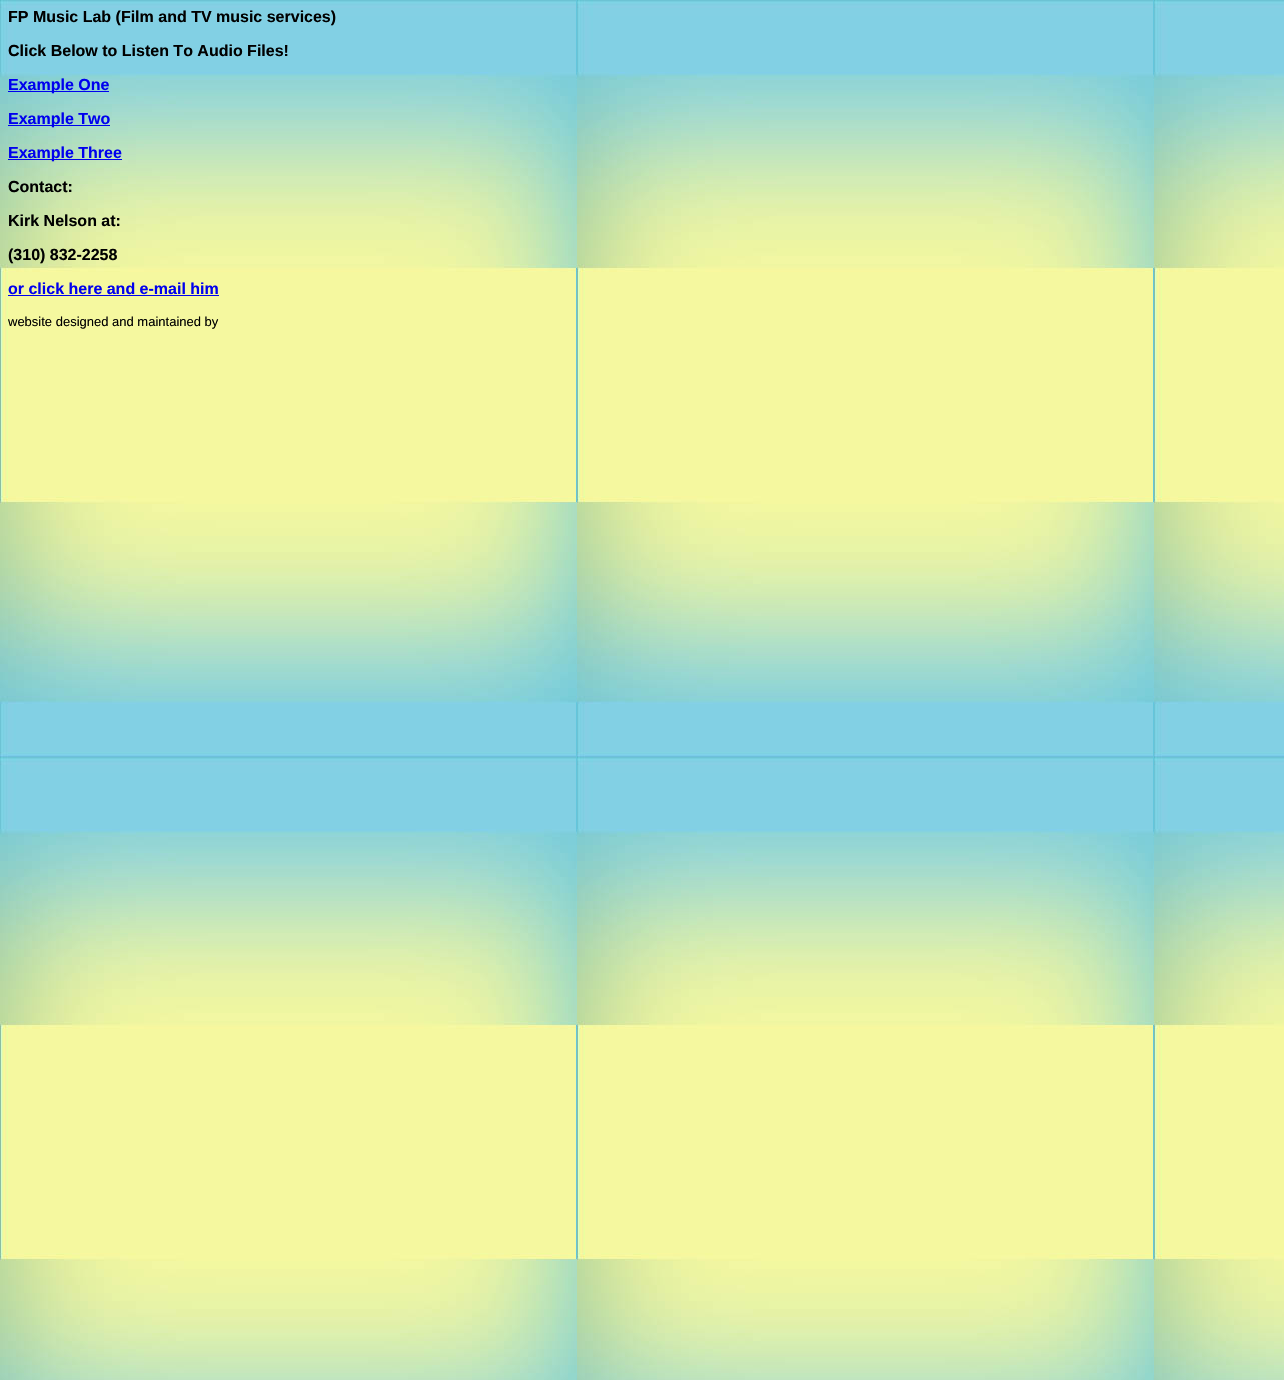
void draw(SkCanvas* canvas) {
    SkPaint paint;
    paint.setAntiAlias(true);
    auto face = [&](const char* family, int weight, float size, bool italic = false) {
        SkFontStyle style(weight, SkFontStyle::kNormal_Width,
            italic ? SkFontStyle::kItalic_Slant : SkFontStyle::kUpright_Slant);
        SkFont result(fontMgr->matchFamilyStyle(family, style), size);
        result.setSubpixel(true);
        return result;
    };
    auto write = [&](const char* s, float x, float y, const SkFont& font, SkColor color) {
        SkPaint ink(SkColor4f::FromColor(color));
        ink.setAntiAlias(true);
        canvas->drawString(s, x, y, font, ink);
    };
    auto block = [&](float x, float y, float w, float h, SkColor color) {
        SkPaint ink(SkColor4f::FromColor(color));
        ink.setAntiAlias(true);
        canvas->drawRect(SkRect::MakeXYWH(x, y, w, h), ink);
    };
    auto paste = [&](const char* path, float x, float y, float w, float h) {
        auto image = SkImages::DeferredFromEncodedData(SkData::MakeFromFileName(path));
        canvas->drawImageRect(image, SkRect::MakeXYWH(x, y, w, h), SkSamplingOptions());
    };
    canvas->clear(SK_ColorWHITE);
    paste("pic1.png", 0, 0, 1284, 1380);
    auto kFont1 = face("Liberation Sans", 700, 16);
    write("FP Music Lab (Film and TV music services)", 8, 22, kFont1, SK_ColorBLACK);
    write("Click Below to Listen To Audio Files!", 8, 56, kFont1, SK_ColorBLACK);
    block(8, 91, 101, 1, SkColorSetRGB(0, 0, 238));
    write("Example One", 8, 90, kFont1, SkColorSetRGB(0, 0, 238));
    block(8, 125, 102, 1, SkColorSetRGB(0, 0, 238));
    write("Example Two", 8, 124, kFont1, SkColorSetRGB(0, 0, 238));
    block(8, 159, 114, 1, SkColorSetRGB(0, 0, 238));
    write("Example Three", 8, 158, kFont1, SkColorSetRGB(0, 0, 238));
    write("Contact:", 8, 192, kFont1, SK_ColorBLACK);
    write("Kirk Nelson at:", 8, 226, kFont1, SK_ColorBLACK);
    write("(310) 832-2258", 8, 260, kFont1, SK_ColorBLACK);
    write("or click here and e-mail him", 8, 294, kFont1, SkColorSetRGB(0, 0, 238));
    block(8, 295, 211, 1, SkColorSetRGB(0, 0, 238));
    auto kFont2 = face("Liberation Sans", 400, 13);
    write("website designed and maintained by", 8, 326, kFont2, SK_ColorBLACK);
}
